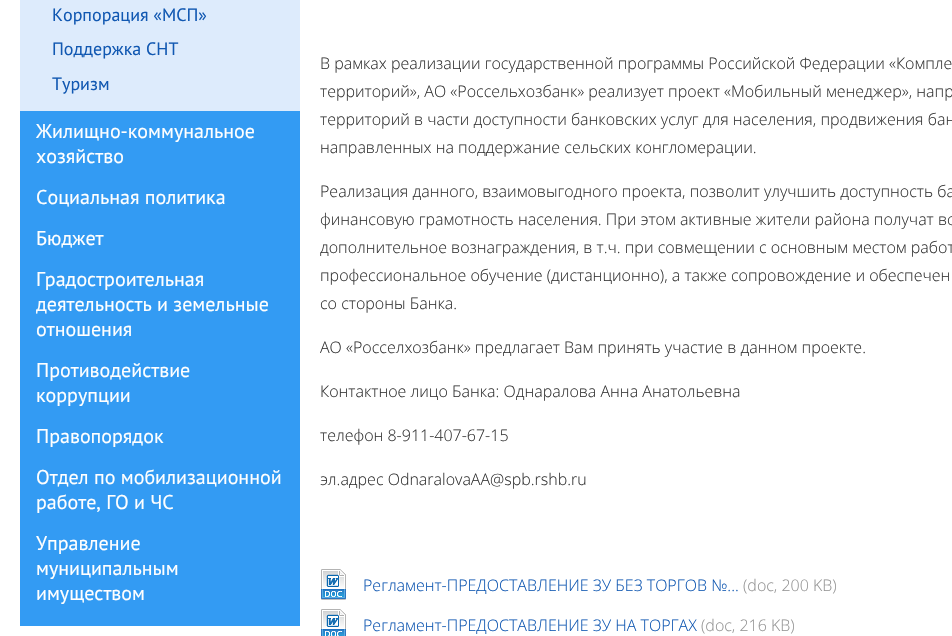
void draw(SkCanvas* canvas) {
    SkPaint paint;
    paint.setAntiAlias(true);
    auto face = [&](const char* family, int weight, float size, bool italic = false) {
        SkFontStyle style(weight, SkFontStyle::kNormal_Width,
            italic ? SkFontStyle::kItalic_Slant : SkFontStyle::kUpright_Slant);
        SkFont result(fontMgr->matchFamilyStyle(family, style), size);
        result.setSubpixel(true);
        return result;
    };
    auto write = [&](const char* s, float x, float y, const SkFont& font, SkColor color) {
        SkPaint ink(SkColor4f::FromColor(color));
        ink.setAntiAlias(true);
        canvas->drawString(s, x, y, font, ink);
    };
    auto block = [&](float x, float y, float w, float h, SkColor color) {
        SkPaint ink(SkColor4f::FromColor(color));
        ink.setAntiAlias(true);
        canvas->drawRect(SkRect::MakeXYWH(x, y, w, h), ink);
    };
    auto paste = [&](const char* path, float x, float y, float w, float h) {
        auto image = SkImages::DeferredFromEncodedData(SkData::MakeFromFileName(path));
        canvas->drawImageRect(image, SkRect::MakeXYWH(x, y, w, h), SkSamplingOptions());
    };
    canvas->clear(SK_ColorWHITE);
    block(20, 111, 280, 515, SkColorSetRGB(51, 155, 243));
    block(20, 0, 280, 111, SkColorSetRGB(221, 235, 252));
    auto kFont1 = face("PT Sans", 400, 18);
    write("Корпорация «МСП»", 52, 21, kFont1, SkColorSetRGB(17, 88, 178));
    write("Поддержка СНТ", 52, 55, kFont1, SkColorSetRGB(17, 88, 178));
    write("Туризм", 52, 90, kFont1, SkColorSetRGB(17, 88, 178));
    auto kFont2 = face("PT Sans", 400, 20);
    write("Жилищно-коммунальное", 36, 138, kFont2, SK_ColorWHITE);
    write("хозяйство", 36, 163, kFont2, SK_ColorWHITE);
    write("Социальная политика", 36, 204, kFont2, SK_ColorWHITE);
    write("Бюджет", 36, 245, kFont2, SK_ColorWHITE);
    write("Градостроительная", 36, 286, kFont2, SK_ColorWHITE);
    write("деятельность и земельные", 36, 311, kFont2, SK_ColorWHITE);
    write("отношения", 36, 336, kFont2, SK_ColorWHITE);
    write("Противодействие", 36, 377, kFont2, SK_ColorWHITE);
    write("коррупции", 36, 402, kFont2, SK_ColorWHITE);
    write("Правопорядок", 36, 443, kFont2, SK_ColorWHITE);
    write("Отдел по мобилизационной", 36, 484, kFont2, SK_ColorWHITE);
    write("работе, ГО и ЧС", 36, 509, kFont2, SK_ColorWHITE);
    write("Управление", 36, 550, kFont2, SK_ColorWHITE);
    write("муниципальным", 36, 575, kFont2, SK_ColorWHITE);
    write("имуществом", 36, 600, kFont2, SK_ColorWHITE);
    auto kFont3 = face("Open Sans", 300, 16);
    write("В рамках реализации государственной программы Российской Федерации «Компле", 320, 69, kFont3, SkColorSetRGB(55, 55, 55));
    write("территорий», АО «Россельхозбанк» реализует проект «Мобильный менеджер», напр", 320, 97, kFont3, SkColorSetRGB(55, 55, 55));
    write("территорий в части доступности банковских услуг для населения, продвижения бан", 320, 125, kFont3, SkColorSetRGB(55, 55, 55));
    write("направленных на поддержание сельских конгломерации.", 320, 153, kFont3, SkColorSetRGB(55, 55, 55));
    write("Реализация данного, взаимовыгодного проекта, позволит улучшить доступность ба", 320, 197, kFont3, SkColorSetRGB(55, 55, 55));
    write("финансовую грамотность населения. При этом активные жители района получат во", 320, 225, kFont3, SkColorSetRGB(55, 55, 55));
    write("дополнительное вознаграждения, в т.ч. при совмещении с основным местом работ", 320, 253, kFont3, SkColorSetRGB(55, 55, 55));
    write("профессиональное обучение (дистанционно), а также сопровождение и обеспечен", 320, 281, kFont3, SkColorSetRGB(55, 55, 55));
    write("со стороны Банка.", 320, 309, kFont3, SkColorSetRGB(55, 55, 55));
    write("АО «Росселхозбанк» предлагает Вам принять участие в данном проекте.", 320, 353, kFont3, SkColorSetRGB(55, 55, 55));
    write("Контактное лицо Банка: Однаралова Анна Анатольевна", 320, 397, kFont3, SkColorSetRGB(55, 55, 55));
    write("телефон 8-911-407-67-15", 320, 441, kFont3, SkColorSetRGB(55, 55, 55));
    write("эл.адрес OdnaralovaAA@spb.rshb.ru", 320, 485, kFont3, SkColorSetRGB(55, 55, 55));
    paste("pic1.png", 321, 569, 25, 31);
    write("Регламент-ПРЕДОСТАВЛЕНИЕ ЗУ БЕЗ ТОРГОВ №...", 363, 591, kFont3, SkColorSetRGB(17, 88, 178));
    write("(doc, 200 KB)", 743, 591, kFont3, SkColorSetRGB(149, 149, 149));
    paste("pic2.png", 321, 609, 25, 27);
    write("Регламент-ПРЕДОСТАВЛЕНИЕ ЗУ НА ТОРГАХ", 363, 631, kFont3, SkColorSetRGB(17, 88, 178));
    write("(doc, 216 KB)", 701, 631, kFont3, SkColorSetRGB(149, 149, 149));
}
